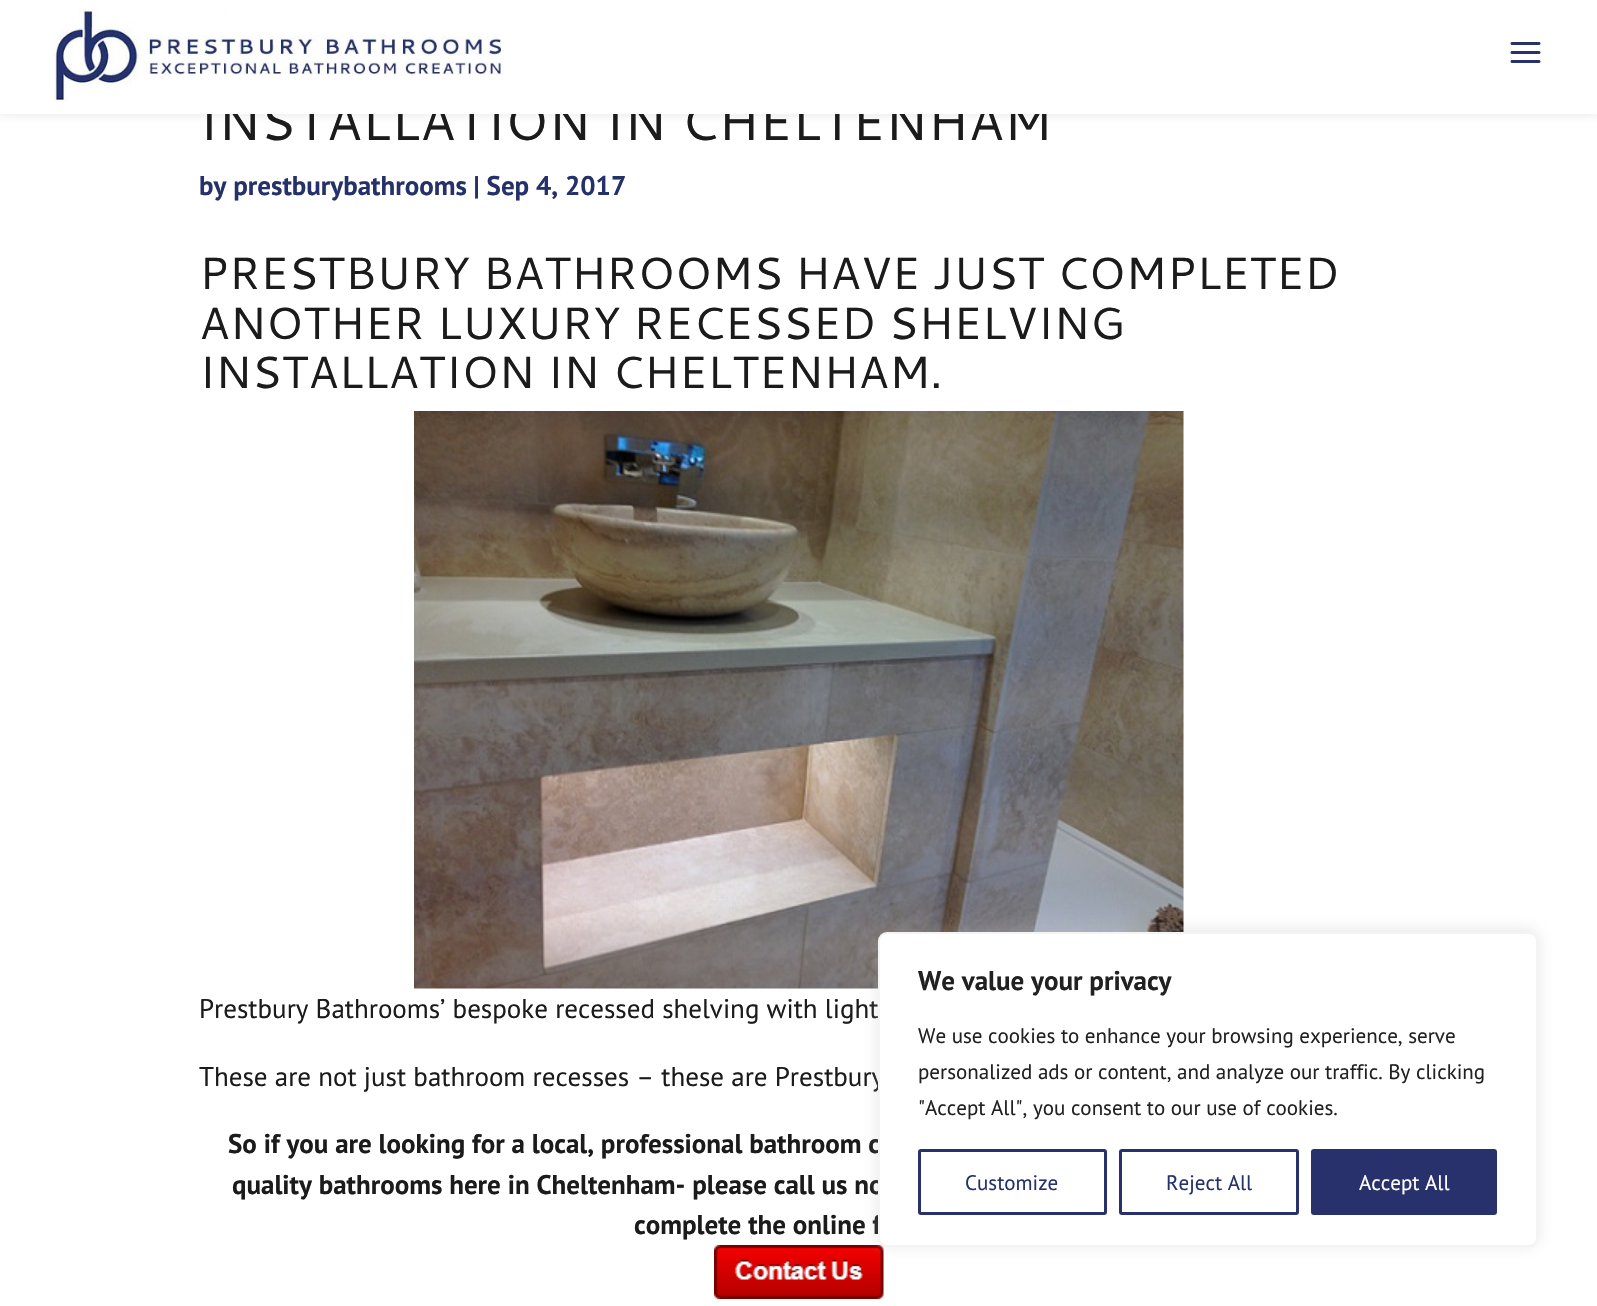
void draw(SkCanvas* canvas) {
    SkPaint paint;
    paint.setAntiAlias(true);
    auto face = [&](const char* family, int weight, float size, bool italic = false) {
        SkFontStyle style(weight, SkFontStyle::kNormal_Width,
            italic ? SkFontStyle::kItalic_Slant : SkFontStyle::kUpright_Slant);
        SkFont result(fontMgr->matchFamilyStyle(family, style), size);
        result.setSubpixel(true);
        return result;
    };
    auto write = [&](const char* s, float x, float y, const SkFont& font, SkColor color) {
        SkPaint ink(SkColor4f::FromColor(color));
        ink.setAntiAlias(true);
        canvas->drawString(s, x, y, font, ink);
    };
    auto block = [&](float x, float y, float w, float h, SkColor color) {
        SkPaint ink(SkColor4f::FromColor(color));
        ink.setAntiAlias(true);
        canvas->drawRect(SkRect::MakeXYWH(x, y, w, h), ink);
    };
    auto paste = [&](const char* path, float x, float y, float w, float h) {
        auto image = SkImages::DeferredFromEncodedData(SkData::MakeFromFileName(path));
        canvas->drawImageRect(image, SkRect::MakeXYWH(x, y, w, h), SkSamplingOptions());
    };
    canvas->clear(SK_ColorWHITE);
    paint.setColor(SkColorSetARGB(26, 0, 0, 0));
    paint.setMaskFilter(SkMaskFilter::MakeBlur(kNormal_SkBlurStyle, 5));
    canvas->drawRect(SkRect::MakeXYWH(0, 0, 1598, 114), paint);
    paint.setMaskFilter(nullptr);
    auto kFont1 = face("Cantarell", 400, 52.5f);
    write("INSTALLATION IN CHELTENHAM", 199, 140, kFont1, SkColorSetRGB(27, 27, 27));
    block(0, 0, 1597, 114, SK_ColorWHITE);
    paste("pic1.png", 52, 9, 449, 94);
    paste("pic2.png", 1510, 42, 31, 21);
    auto kFont2 = face("PT Sans", 700, 27);
    write("by prestburybathrooms | Sep 4, 2017", 199, 195, kFont2, SkColorSetRGB(37, 50, 106));
    auto kFont3 = face("Cantarell", 400, 45);
    write("PRESTBURY BATHROOMS HAVE JUST COMPLETED", 199, 289, kFont3, SkColorSetRGB(27, 27, 27));
    write("ANOTHER LUXURY RECESSED SHELVING", 199, 339, kFont3, SkColorSetRGB(27, 27, 27));
    write("INSTALLATION IN CHELTENHAM.", 199, 388, kFont3, SkColorSetRGB(27, 27, 27));
    paste("pic3.png", 414, 411, 770, 578);
    auto kFont4 = face("PT Sans", 400, 27);
    write("Prestbury Bathrooms’ bespoke recessed shelving with light", 199, 1018, kFont4, SkColorSetRGB(27, 27, 27));
    write("These are not just bathroom recesses – these are Prestbury", 199, 1086, kFont4, SkColorSetRGB(27, 27, 27));
    write("So if you are looking for a local, professional bathroom c", 228, 1153, kFont2, SkColorSetRGB(27, 27, 27));
    write("quality bathrooms here in Cheltenham- please call us no", 232, 1194, kFont2, SkColorSetRGB(27, 27, 27));
    write("complete the online f", 634, 1234, kFont2, SkColorSetRGB(27, 27, 27));
    paste("pic4.png", 714, 1245, 170, 54);
    paint.setColor(SkColorSetARGB(77, 172, 171, 171));
    paint.setMaskFilter(SkMaskFilter::MakeBlur(kNormal_SkBlurStyle, 7.5f));
    canvas->drawRoundRect(SkRect::MakeXYWH(878, 930, 660, 315), 9, 9, paint);
    paint.setMaskFilter(nullptr);
    paint.setColor(SK_ColorWHITE);
    canvas->drawRoundRect(SkRect::MakeXYWH(879, 933, 658, 313), 8, 8, paint);
    paint.setStyle(SkPaint::kStroke_Style);
    paint.setStrokeWidth(2);
    paint.setColor(SkColorSetRGB(244, 244, 244));
    canvas->drawRoundRect(SkRect::MakeXYWH(879, 933, 658, 313), 8, 8, paint);
    write("We value your privacy", 918, 990, kFont2, SkColorSetRGB(33, 33, 33));
    auto kFont5 = face("PT Sans", 400, 21);
    write("We use cookies to enhance your browsing experience, serve", 918, 1043, kFont5, SkColorSetRGB(33, 33, 33));
    write("personalized ads or content, and analyze our traffic. By clicking", 918, 1079, kFont5, SkColorSetRGB(33, 33, 33));
    write("\"Accept All\", you consent to our use of cookies.", 918, 1115, kFont5, SkColorSetRGB(33, 33, 33));
    paint.setStrokeWidth(3);
    paint.setColor(SkColorSetRGB(40, 49, 108));
    canvas->drawRoundRect(SkRect::MakeXYWH(919.5f, 1150.5f, 186, 63), 1.5f, 1.5f, paint);
    write("Customize", 965, 1190, kFont5, SkColorSetRGB(37, 50, 106));
    canvas->drawRoundRect(SkRect::MakeXYWH(1120.5f, 1150.5f, 177, 63), 1.5f, 1.5f, paint);
    write("Reject All", 1166, 1190, kFont5, SkColorSetRGB(37, 50, 106));
    paint.setStyle(SkPaint::kFill_Style);
    canvas->drawRoundRect(SkRect::MakeXYWH(1312.5f, 1150.5f, 183, 63), 1.5f, 1.5f, paint);
    paint.setStyle(SkPaint::kStroke_Style);
    canvas->drawRoundRect(SkRect::MakeXYWH(1312.5f, 1150.5f, 183, 63), 1.5f, 1.5f, paint);
    write("Accept All", 1359, 1190, kFont5, SK_ColorWHITE);
}
